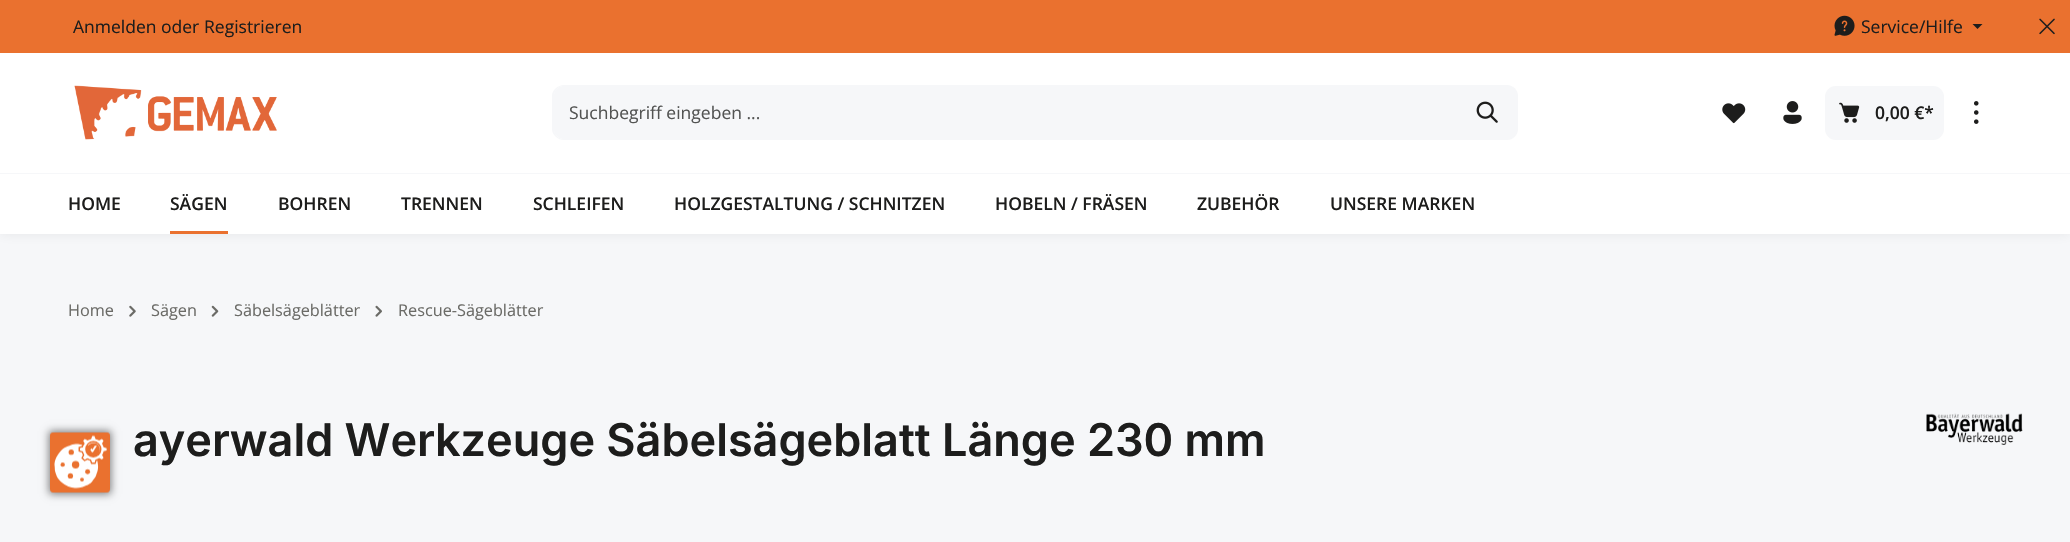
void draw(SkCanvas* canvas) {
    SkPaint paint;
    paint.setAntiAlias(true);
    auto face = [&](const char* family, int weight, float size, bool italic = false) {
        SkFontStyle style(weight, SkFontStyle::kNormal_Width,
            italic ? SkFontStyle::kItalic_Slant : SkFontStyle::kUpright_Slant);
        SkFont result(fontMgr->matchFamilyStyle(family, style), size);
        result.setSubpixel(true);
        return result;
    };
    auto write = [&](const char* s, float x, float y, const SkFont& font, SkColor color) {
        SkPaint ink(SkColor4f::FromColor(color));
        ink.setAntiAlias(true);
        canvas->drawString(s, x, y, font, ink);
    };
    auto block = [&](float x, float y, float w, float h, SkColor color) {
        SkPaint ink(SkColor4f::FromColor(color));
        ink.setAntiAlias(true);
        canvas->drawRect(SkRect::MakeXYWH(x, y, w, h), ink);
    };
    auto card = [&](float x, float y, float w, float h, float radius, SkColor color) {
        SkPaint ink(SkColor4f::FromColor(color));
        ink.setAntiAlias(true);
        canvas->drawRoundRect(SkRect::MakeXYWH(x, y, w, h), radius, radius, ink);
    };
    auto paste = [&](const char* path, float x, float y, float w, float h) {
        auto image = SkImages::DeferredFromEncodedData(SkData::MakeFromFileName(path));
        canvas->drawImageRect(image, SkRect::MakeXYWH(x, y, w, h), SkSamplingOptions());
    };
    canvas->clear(SkColorSetRGB(246, 247, 249));
    paint.setColor(SkColorSetARGB(18, 22, 24, 29));
    paint.setMaskFilter(SkMaskFilter::MakeBlur(kNormal_SkBlurStyle, 6));
    canvas->drawRect(SkRect::MakeXYWH(0, 0, 2070, 234), paint);
    paint.setMaskFilter(nullptr);
    block(0, 0, 2070, 53, SkColorSetRGB(234, 113, 47));
    auto kFont1 = face("Open Sans", 400, 17.5f);
    write("Anmelden", 73, 33, kFont1, SkColorSetRGB(29, 29, 28));
    write("oder", 161, 33, kFont1, SkColorSetRGB(29, 29, 28));
    write("Registrieren", 204, 33, kFont1, SkColorSetRGB(29, 29, 28));
    paste("pic1.png", 1834, 15, 21, 21);
    write("Service/Hilfe", 1861, 33, kFont1, SkColorSetRGB(29, 29, 28));
    paint.setColor(SkColorSetRGB(29, 29, 28));
    canvas->drawPath(SkPathBuilder().moveTo(1972.5f, 24).lineTo(1982.5f, 24).lineTo(1977.5f, 29).close().detach(), paint);
    paste("pic2.png", 2039, 18, 16, 17);
    block(0, 53, 2070, 120, SK_ColorWHITE);
    paste("pic3.png", 74, 85, 203, 55);
    paint.setColor(SkColorSetRGB(246, 247, 249));
    canvas->drawPath(SkPathBuilder().moveTo(564, 86).lineTo(1460, 86).lineTo(1460, 139).lineTo(564, 139).cubicTo(558.5f, 139, 554, 134.5f, 554, 129).lineTo(554, 96).cubicTo(554, 90.5f, 558.5f, 86, 564, 86).close().detach(), paint);
    canvas->drawPath(SkPathBuilder(SkPathFillType::kEvenOdd).moveTo(564, 85).lineTo(1460, 85).lineTo(1460, 140).lineTo(564, 140).cubicTo(558, 140, 552, 135, 552, 129).lineTo(552, 96).cubicTo(552, 90, 558, 85, 564, 85).close().moveTo(564, 86).lineTo(1460, 86).lineTo(1460, 139).lineTo(564, 139).cubicTo(558, 139, 554, 134, 554, 129).lineTo(554, 96).cubicTo(554, 91, 558, 86, 564, 86).close().detach(), paint);
    write("Suchbegriff eingeben ...", 569, 119, kFont1, SkColorSetRGB(83, 84, 83));
    canvas->drawPath(SkPathBuilder().moveTo(1459, 85).lineTo(1507, 85).cubicTo(1513, 85, 1518, 90, 1518, 96).lineTo(1518, 129).cubicTo(1518, 135, 1513, 140, 1507, 140).lineTo(1459, 140).close().detach(), paint);
    paste("pic4.png", 1476, 101, 22, 22);
    paste("pic5.png", 1722, 103, 24, 21);
    paste("pic6.png", 1783, 101, 19, 23);
    card(1825, 86, 119, 54, 11, SkColorSetRGB(246, 247, 249));
    paste("pic7.png", 1839, 102, 21, 21);
    auto kFont2 = face("Open Sans", 600, 17.5f);
    write("0,00 €*", 1875, 119, kFont2, SkColorSetRGB(29, 29, 28));
    paste("pic8.png", 1974, 101, 5, 23);
    block(0, 174, 2070, 60, SK_ColorWHITE);
    block(0, 173, 2070, 1, SkColorSetRGB(246, 247, 249));
    write("HOME", 68, 210, kFont2, SkColorSetRGB(29, 29, 28));
    write("SÄGEN", 170, 210, kFont2, SkColorSetRGB(29, 29, 28));
    block(170, 231, 58, 3, SkColorSetRGB(234, 113, 47));
    write("BOHREN", 278, 210, kFont2, SkColorSetRGB(29, 29, 28));
    write("TRENNEN", 401, 210, kFont2, SkColorSetRGB(29, 29, 28));
    write("SCHLEIFEN", 533, 210, kFont2, SkColorSetRGB(29, 29, 28));
    write("HOLZGESTALTUNG / SCHNITZEN", 674, 210, kFont2, SkColorSetRGB(29, 29, 28));
    write("HOBELN / FRÄSEN", 995, 210, kFont2, SkColorSetRGB(29, 29, 28));
    write("ZUBEHÖR", 1197, 210, kFont2, SkColorSetRGB(29, 29, 28));
    write("UNSERE MARKEN", 1330, 210, kFont2, SkColorSetRGB(29, 29, 28));
    auto kFont3 = face("Open Sans", 400, 16.25f);
    write("Home", 68, 316, kFont3, SkColorSetRGB(107, 107, 103));
    paste("pic9.png", 129, 305, 7, 12);
    write("Sägen", 151, 316, kFont3, SkColorSetRGB(107, 107, 103));
    paste("pic10.png", 211, 305, 8, 12);
    write("Säbelsägeblätter", 234, 316, kFont3, SkColorSetRGB(107, 107, 103));
    paste("pic11.png", 375, 305, 7, 12);
    write("Rescue-Sägeblätter", 398, 316, kFont3, SkColorSetRGB(107, 107, 103));
    auto kFont4 = face("Inter", 600, 45);
    write("ayerwald Werkzeuge Säbelsägeblatt Länge 230 mm", 133, 456, kFont4, SkColorSetRGB(29, 29, 28));
    paste("pic12.png", 1926, 413, 97, 32);
    paint.setColor(SkColorSetARGB(128, 0, 0, 0));
    paint.setMaskFilter(SkMaskFilter::MakeBlur(kNormal_SkBlurStyle, 4));
    canvas->drawRect(SkRect::MakeXYWH(49, 431, 62, 63), paint);
    paint.setMaskFilter(nullptr);
    paste("pic13.png", 50, 432, 60, 61);
}
